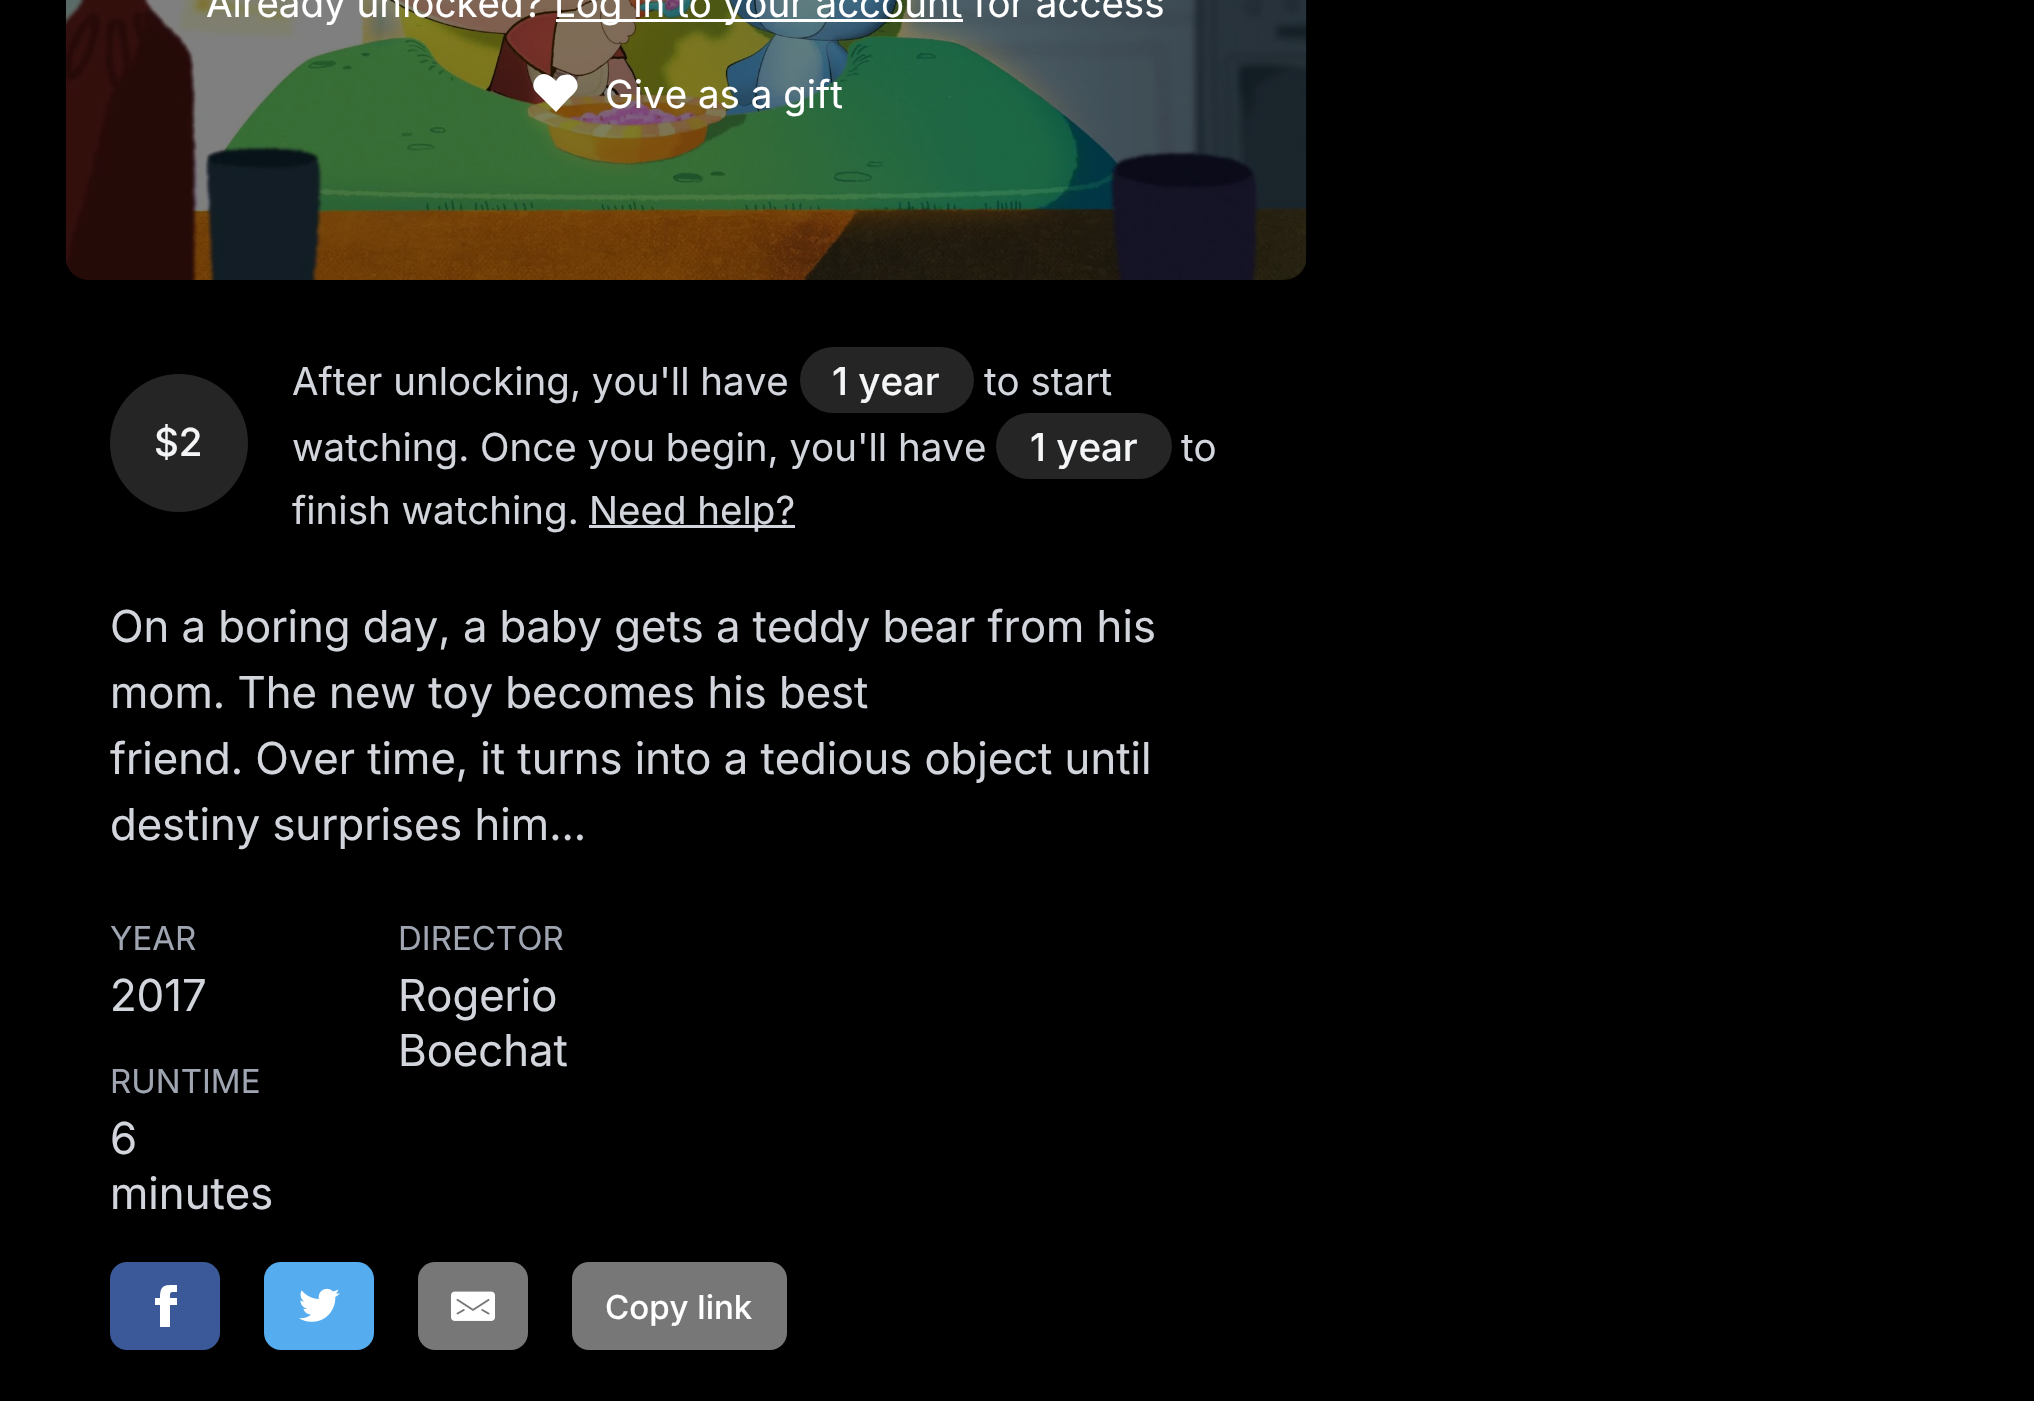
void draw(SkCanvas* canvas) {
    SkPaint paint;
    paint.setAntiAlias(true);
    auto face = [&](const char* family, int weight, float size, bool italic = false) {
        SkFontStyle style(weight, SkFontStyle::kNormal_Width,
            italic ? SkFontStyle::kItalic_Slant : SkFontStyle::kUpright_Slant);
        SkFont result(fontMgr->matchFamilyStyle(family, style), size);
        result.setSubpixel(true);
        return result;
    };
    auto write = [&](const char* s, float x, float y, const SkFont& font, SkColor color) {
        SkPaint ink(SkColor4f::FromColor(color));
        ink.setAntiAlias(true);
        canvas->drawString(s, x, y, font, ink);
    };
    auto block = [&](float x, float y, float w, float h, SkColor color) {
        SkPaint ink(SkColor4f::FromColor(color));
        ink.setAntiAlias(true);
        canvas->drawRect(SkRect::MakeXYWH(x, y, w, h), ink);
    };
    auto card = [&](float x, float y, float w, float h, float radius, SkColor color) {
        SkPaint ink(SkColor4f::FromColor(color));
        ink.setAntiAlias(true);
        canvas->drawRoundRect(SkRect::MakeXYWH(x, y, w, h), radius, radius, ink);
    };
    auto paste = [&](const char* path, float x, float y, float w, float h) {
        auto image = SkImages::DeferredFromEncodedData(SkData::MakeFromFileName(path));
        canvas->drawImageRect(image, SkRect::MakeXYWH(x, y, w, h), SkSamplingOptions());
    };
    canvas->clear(SK_ColorBLACK);
    paste("pic1.png", 66, 0, 1241, 280);
    card(66, -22, 1240, 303, 22, SkColorSetARGB(128, 0, 0, 0));
    auto kFont1 = face("Inter", 400, 38.5f);
    write("Already unlocked?", 206, 17, kFont1, SK_ColorWHITE);
    block(556, 19, 407, 3, SK_ColorWHITE);
    write("Log in to your account for access", 554, 17, kFont1, SK_ColorWHITE);
    paint.setColor(SK_ColorWHITE);
    canvas->drawPath(SkPathBuilder(SkPathFillType::kEvenOdd).moveTo(537, 77).cubicTo(544, 71, 550, 75, 556, 81).cubicTo(558, 78, 560, 75, 564, 75).cubicTo(572, 72, 580, 81, 577, 89).cubicTo(575, 93, 571, 96, 568, 99).lineTo(556, 112).lineTo(537, 93).cubicTo(532, 89, 532, 82, 537, 77).close().detach(), paint);
    write("Give as a gift", 605, 108, kFont1, SK_ColorWHITE);
    paint.setColor(SkColorSetRGB(37, 37, 37));
    canvas->drawCircle(179, 443, 69, paint);
    auto kFont2 = face("Inter", 500, 38.5f);
    write("$2", 154, 456, kFont2, SkColorSetRGB(244, 245, 247));
    write("After unlocking, you'll have", 292, 395, kFont1, SkColorSetRGB(210, 214, 220));
    card(800, 347, 174, 66, 33, SkColorSetRGB(37, 37, 37));
    write("1 year", 832, 395, kFont2, SkColorSetRGB(244, 245, 247));
    write("to start", 984, 395, kFont1, SkColorSetRGB(210, 214, 220));
    write("watching. Once you begin, you'll have", 292, 461, kFont1, SkColorSetRGB(210, 214, 220));
    card(996, 413, 176, 66, 33, SkColorSetRGB(37, 37, 37));
    write("1 year", 1030, 461, kFont2, SkColorSetRGB(244, 245, 247));
    write("to", 1181, 461, kFont1, SkColorSetRGB(210, 214, 220));
    write("finish watching.", 292, 524, kFont1, SkColorSetRGB(210, 214, 220));
    block(589, 525, 206, 3, SkColorSetRGB(210, 214, 220));
    write("Need help?", 589, 524, kFont1, SkColorSetRGB(210, 214, 220));
    auto kFont3 = face("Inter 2", 400, 44);
    write("On a boring day, a baby gets a teddy bear from his", 110, 642, kFont3, SkColorSetRGB(210, 214, 220));
    write("mom. The new toy becomes his best", 110, 708, kFont3, SkColorSetRGB(210, 214, 220));
    write("friend. Over time, it turns into a tedious object until", 110, 774, kFont3, SkColorSetRGB(210, 214, 220));
    write("destiny surprises him...", 110, 840, kFont3, SkColorSetRGB(210, 214, 220));
    auto kFont4 = face("Inter", 400, 33);
    write("YEAR", 110, 950, kFont4, SkColorSetRGB(159, 166, 178));
    write("2017", 110, 1011, kFont3, SkColorSetRGB(210, 214, 220));
    write("RUNTIME", 110, 1093, kFont4, SkColorSetRGB(159, 166, 178));
    write("6", 110, 1154, kFont3, SkColorSetRGB(210, 214, 220));
    write("minutes", 110, 1209, kFont3, SkColorSetRGB(210, 214, 220));
    write("DIRECTOR", 398, 950, kFont4, SkColorSetRGB(159, 166, 178));
    write("Rogerio", 398, 1011, kFont3, SkColorSetRGB(210, 214, 220));
    write("Boechat", 398, 1066, kFont3, SkColorSetRGB(210, 214, 220));
    card(110, 1262, 110, 88, 17, SkColorSetRGB(59, 89, 152));
    paint.setColor(SK_ColorWHITE);
    canvas->drawPath(SkPathBuilder().moveTo(177, 1298).lineTo(170, 1298).cubicTo(170, 1291, 170, 1292, 177, 1292).lineTo(177, 1285).cubicTo(165, 1285, 160, 1284, 160, 1298).lineTo(155, 1298).lineTo(155, 1305).lineTo(160, 1305).lineTo(160, 1327).lineTo(170, 1327).lineTo(170, 1305).lineTo(177, 1305).close().detach(), paint);
    card(264, 1262, 110, 88, 17, SkColorSetRGB(85, 172, 238));
    paste("pic2.png", 299, 1288, 41, 34);
    card(418, 1262, 110, 88, 17, SkColorSetRGB(119, 119, 119));
    paste("pic3.png", 451, 1291, 44, 30);
    card(572, 1262, 215, 88, 17, SkColorSetRGB(119, 119, 119));
    auto kFont5 = face("Inter", 500, 33);
    write("Copy link", 605, 1319, kFont5, SK_ColorWHITE);
}
